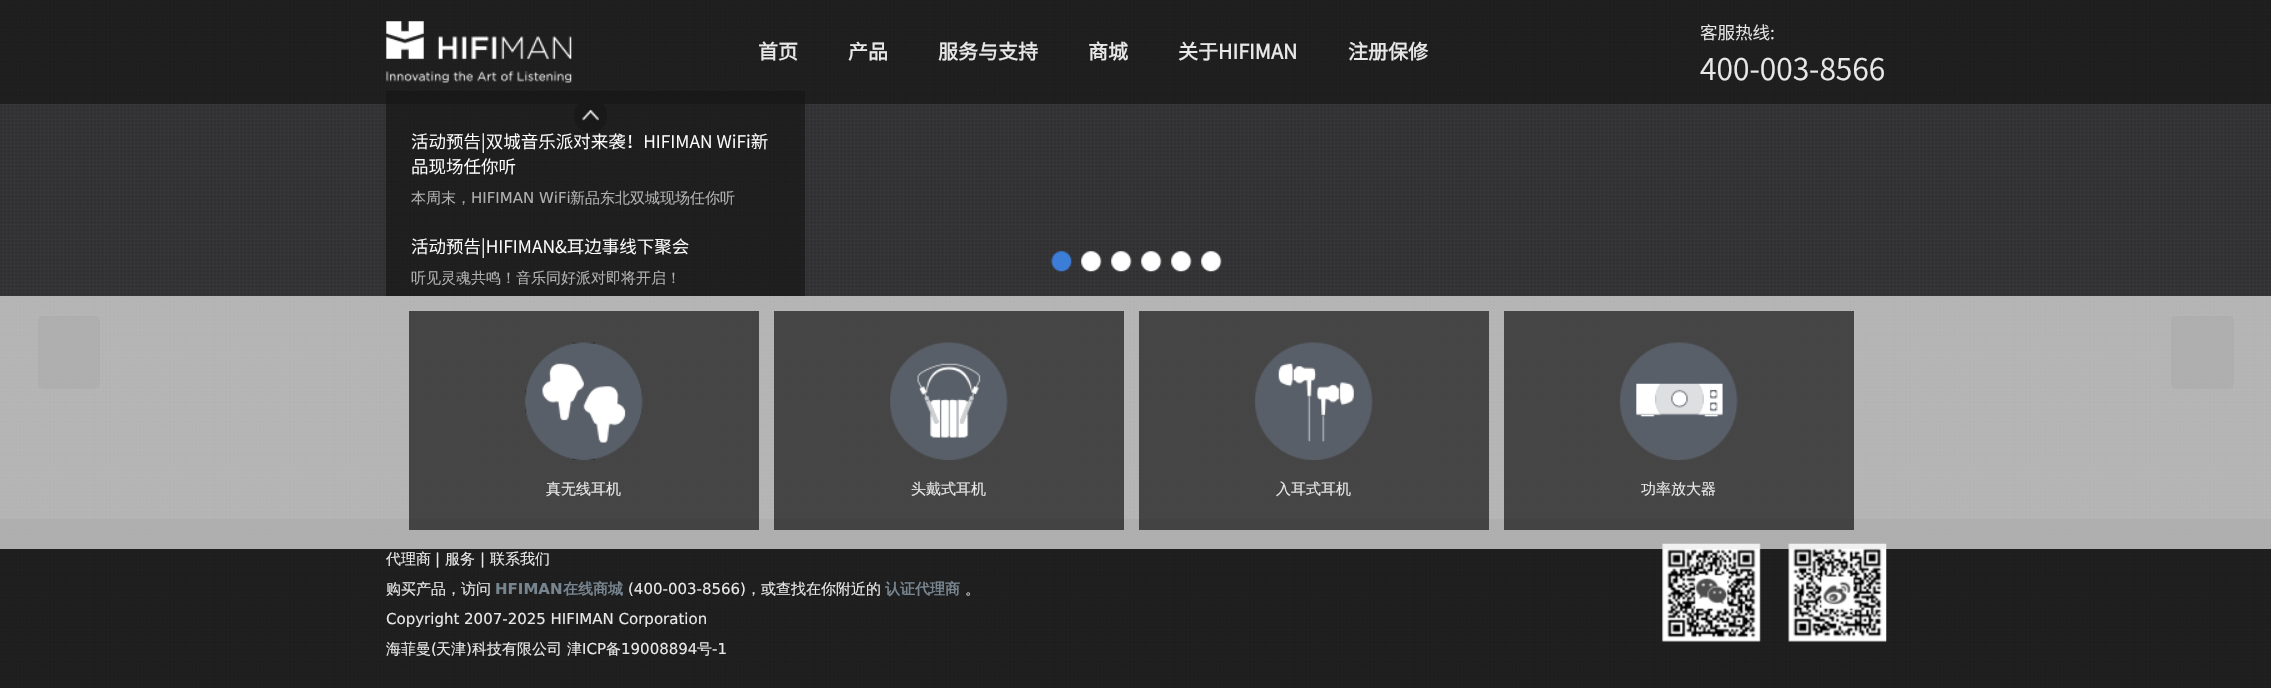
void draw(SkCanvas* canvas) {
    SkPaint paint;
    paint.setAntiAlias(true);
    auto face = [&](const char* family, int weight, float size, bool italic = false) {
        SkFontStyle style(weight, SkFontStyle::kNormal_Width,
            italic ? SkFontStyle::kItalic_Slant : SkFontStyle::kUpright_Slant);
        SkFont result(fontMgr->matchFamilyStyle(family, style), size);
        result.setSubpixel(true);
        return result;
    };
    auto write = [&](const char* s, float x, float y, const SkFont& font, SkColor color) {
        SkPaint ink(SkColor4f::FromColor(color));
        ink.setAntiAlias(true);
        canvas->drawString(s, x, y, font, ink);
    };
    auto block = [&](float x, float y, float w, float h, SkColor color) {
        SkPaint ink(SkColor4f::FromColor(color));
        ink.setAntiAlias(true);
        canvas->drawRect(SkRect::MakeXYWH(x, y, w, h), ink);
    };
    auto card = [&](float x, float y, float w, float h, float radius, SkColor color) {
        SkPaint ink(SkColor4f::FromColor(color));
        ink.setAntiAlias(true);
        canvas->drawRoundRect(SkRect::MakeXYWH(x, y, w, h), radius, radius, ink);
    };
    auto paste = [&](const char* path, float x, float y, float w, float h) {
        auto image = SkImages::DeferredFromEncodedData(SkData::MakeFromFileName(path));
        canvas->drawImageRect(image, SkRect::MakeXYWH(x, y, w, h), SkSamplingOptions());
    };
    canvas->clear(SkColorSetRGB(54, 54, 56));
    paste("pic1.png", 0, 0, 2271, 688);
    block(0, 0, 2271, 104, SkColorSetARGB(179, 21, 21, 21));
    paste("pic2.png", 386, 21, 186, 62);
    auto kFont1 = face("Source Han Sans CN", 700, 20);
    write("首页", 758, 59, kFont1, SkColorSetRGB(232, 232, 232));
    write("产品", 848, 59, kFont1, SkColorSetRGB(232, 232, 232));
    write("服务与支持", 938, 59, kFont1, SkColorSetRGB(232, 232, 232));
    write("商城", 1088, 59, kFont1, SkColorSetRGB(232, 232, 232));
    write("关于HIFIMAN", 1178, 59, kFont1, SkColorSetRGB(232, 232, 232));
    write("注册保修", 1348, 59, kFont1, SkColorSetRGB(232, 232, 232));
    auto kFont2 = face("Source Han Sans CN", 300, 17.5f);
    write("客服热线:", 1700, 39, kFont2, SkColorSetRGB(232, 232, 232));
    auto kFont3 = face("Source Han Sans CN", 300, 30);
    write("400-003-8566", 1700, 80, kFont3, SkColorSetRGB(232, 232, 232));
    block(386, 91, 419, 205, SkColorSetARGB(179, 21, 21, 21));
    paste("pic3.png", 574, 104, 33, 28);
    write("活动预告|双城音乐派对来袭！HIFIMAN WiFi新", 411, 148, kFont2, SK_ColorWHITE);
    write("品现场任你听", 411, 173, kFont2, SK_ColorWHITE);
    auto kFont4 = face("WenQuanYi Zen Hei", 500, 15);
    write("本周末，", 411, 203, kFont4, SkColorSetRGB(176, 176, 176));
    auto kFont5 = face("DejaVu Sans", 400, 15);
    write("HIFIMAN WiFi", 471, 203, kFont5, SkColorSetRGB(176, 176, 176));
    write("新品东北双城现场任你听", 570, 203, kFont4, SkColorSetRGB(176, 176, 176));
    write("活动预告|HIFIMAN&耳边事线下聚会", 411, 253, kFont2, SK_ColorWHITE);
    write("听见灵魂共鸣！音乐同好派对即将开启！", 411, 283, kFont4, SkColorSetRGB(176, 176, 176));
    block(0, 519, 2271, 169, SkColorSetARGB(179, 21, 21, 21));
    paste("pic8.png", 1662, 543, 99, 99);
    paste("pic9.png", 1788, 543, 99, 99);
    card(38, 316, 62, 73, 5, SkColorSetARGB(179, 21, 21, 21));
    card(2171, 316, 63, 73, 5, SkColorSetARGB(179, 21, 21, 21));
    block(0, 296, 2271, 253, SkColorSetARGB(179, 235, 235, 235));
    block(409, 311, 350, 219, SkColorSetARGB(179, 21, 21, 21));
    paste("pic4.png", 525, 342, 118, 118);
    write("真无线耳机", 546, 494, kFont4, SkColorSetRGB(232, 232, 232));
    block(774, 311, 350, 219, SkColorSetARGB(179, 21, 21, 21));
    paste("pic5.png", 890, 342, 118, 118);
    write("头戴式耳机", 911, 494, kFont4, SkColorSetRGB(232, 232, 232));
    block(1139, 311, 350, 219, SkColorSetARGB(179, 21, 21, 21));
    paste("pic6.png", 1255, 342, 118, 118);
    write("入耳式耳机", 1276, 494, kFont4, SkColorSetRGB(232, 232, 232));
    block(1504, 311, 350, 219, SkColorSetARGB(179, 21, 21, 21));
    paste("pic7.png", 1620, 342, 118, 118);
    write("功率放大器", 1641, 494, kFont4, SkColorSetRGB(232, 232, 232));
    write("代理商", 386, 564, kFont4, SkColorSetRGB(232, 232, 232));
    write("|", 435, 564, kFont5, SkColorSetRGB(232, 232, 232));
    write("服务", 445, 564, kFont4, SkColorSetRGB(232, 232, 232));
    write("|", 480, 564, kFont5, SkColorSetRGB(232, 232, 232));
    write("联系我们", 490, 564, kFont4, SkColorSetRGB(232, 232, 232));
    write("购买产品，访问", 386, 594, kFont4, SkColorSetRGB(232, 232, 232));
    auto kFont6 = face("DejaVu Sans", 700, 15);
    write("HFIMAN", 495, 594, kFont6, SkColorSetRGB(119, 133, 144));
    auto kFont7 = face("WenQuanYi Zen Hei", 700, 15);
    write("在线商城", 563, 594, kFont7, SkColorSetRGB(119, 133, 144));
    write("(400-003-8566)", 628, 594, kFont5, SkColorSetRGB(232, 232, 232));
    write("，或查找在你附近的", 746, 594, kFont4, SkColorSetRGB(232, 232, 232));
    write("认证代理商", 885, 594, kFont7, SkColorSetRGB(119, 133, 144));
    write("。", 965, 594, kFont4, SkColorSetRGB(232, 232, 232));
    write("Copyright 2007-2025 HIFIMAN Corporation", 386, 624, kFont5, SkColorSetRGB(232, 232, 232));
    write("海菲曼", 386, 654, kFont4, SkColorSetRGB(232, 232, 232));
    write("(", 431, 654, kFont5, SkColorSetRGB(232, 232, 232));
    write("天津", 436, 654, kFont4, SkColorSetRGB(232, 232, 232));
    write(")", 466, 654, kFont5, SkColorSetRGB(232, 232, 232));
    write("科技有限公司", 472, 654, kFont4, SkColorSetRGB(232, 232, 232));
    write("津", 567, 654, kFont4, SkColorSetRGB(232, 232, 232));
    write("ICP", 582, 654, kFont5, SkColorSetRGB(232, 232, 232));
    write("备", 606, 654, kFont4, SkColorSetRGB(232, 232, 232));
    write("19008894", 621, 654, kFont5, SkColorSetRGB(232, 232, 232));
    write("号", 697, 654, kFont4, SkColorSetRGB(232, 232, 232));
    write("-1", 712, 654, kFont5, SkColorSetRGB(232, 232, 232));
    paste("pic10.png", 1051, 251, 21, 21);
    paste("pic11.png", 1081, 251, 21, 21);
    paste("pic11.png", 1111, 251, 21, 21);
    paste("pic11.png", 1141, 251, 21, 21);
    paste("pic11.png", 1171, 251, 21, 21);
    paste("pic11.png", 1201, 251, 21, 21);
}
